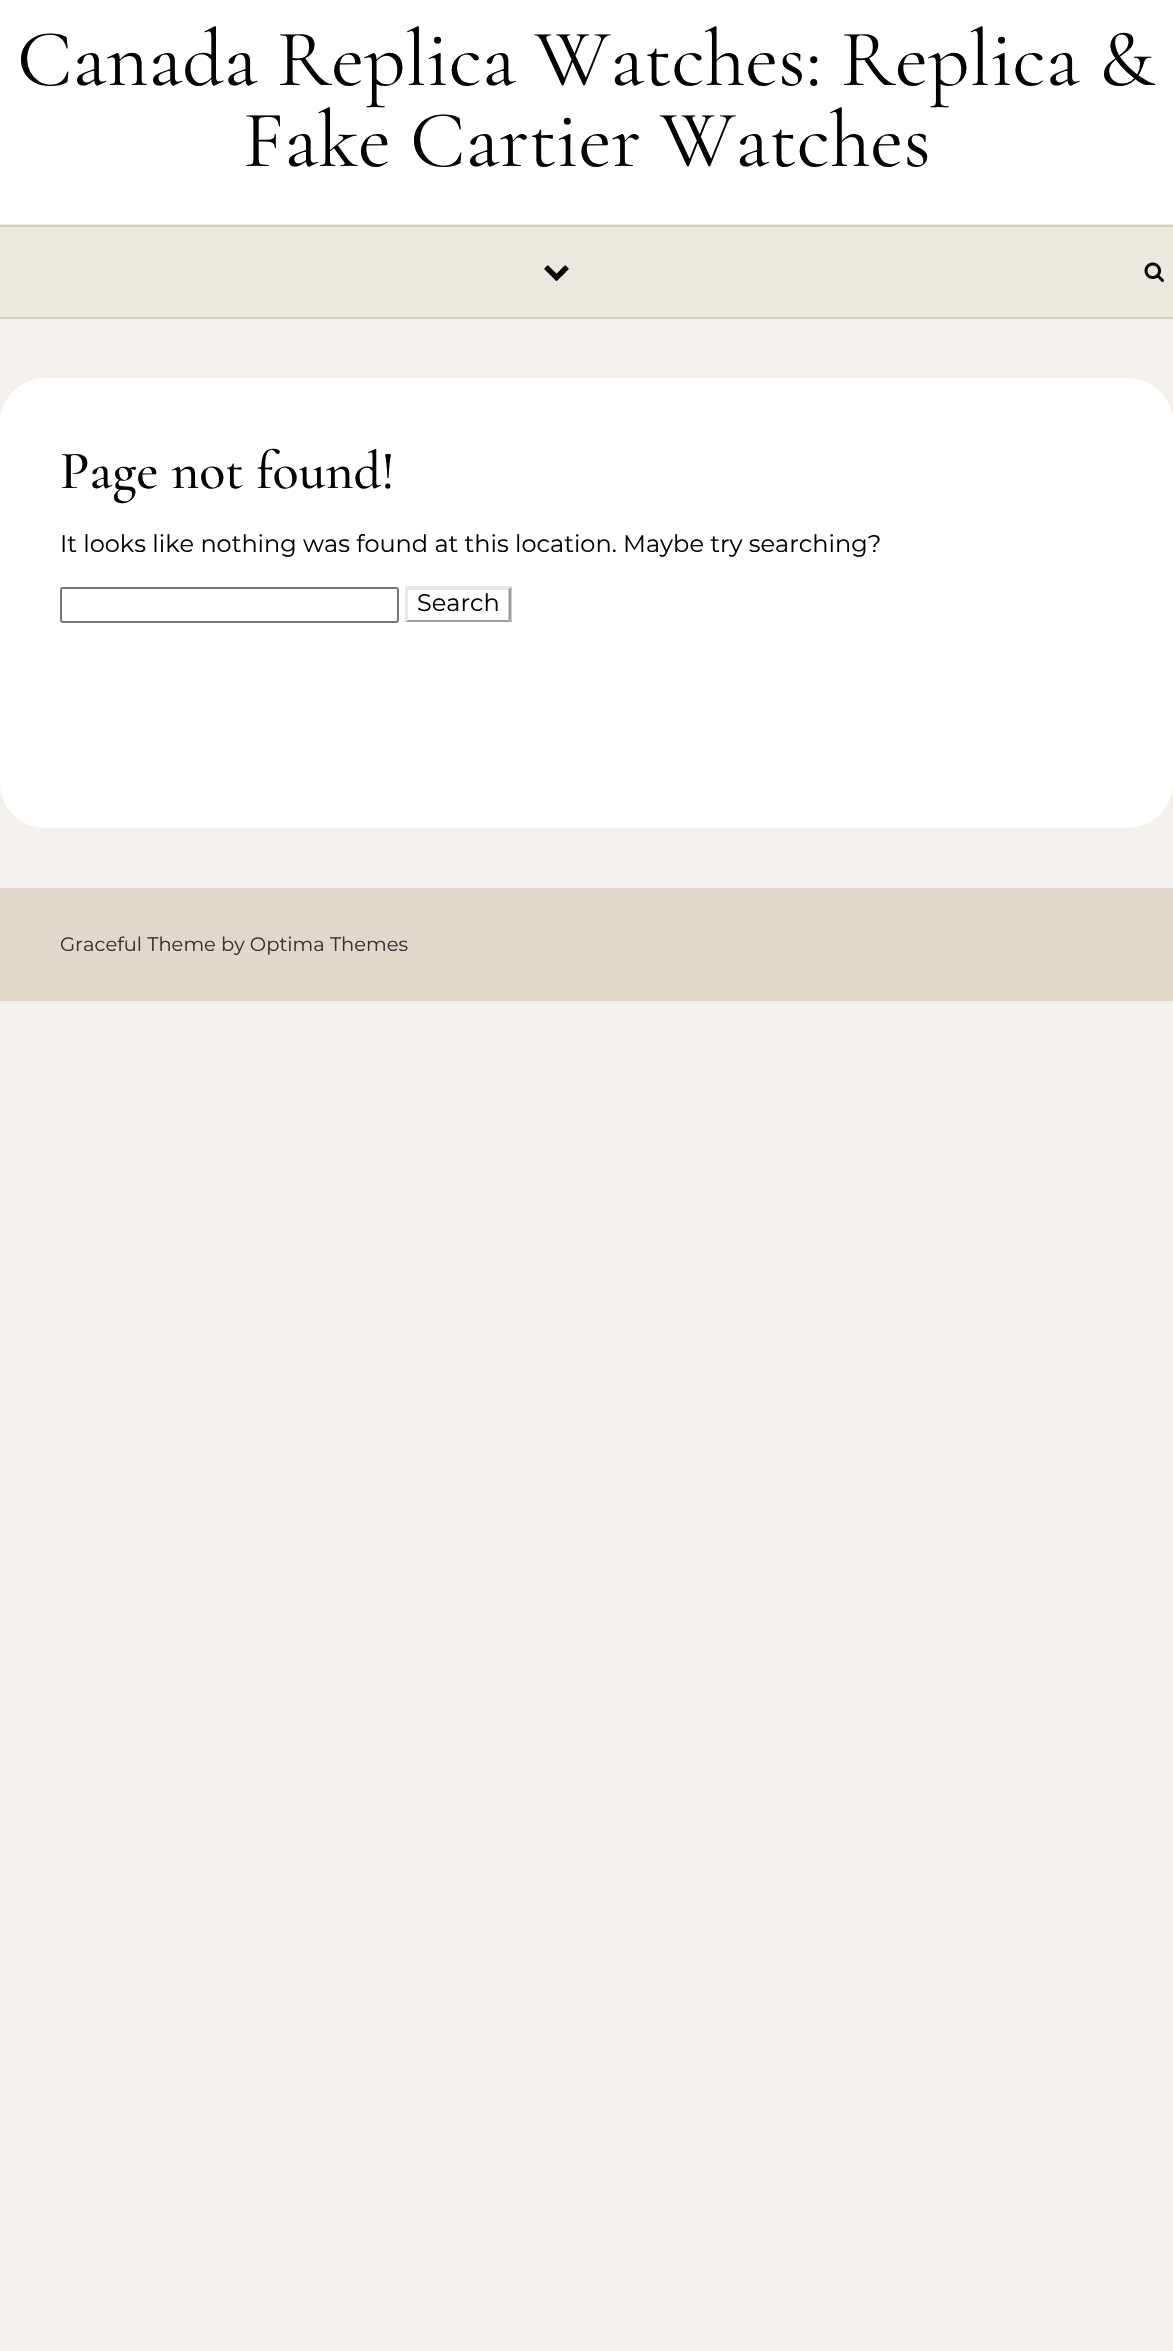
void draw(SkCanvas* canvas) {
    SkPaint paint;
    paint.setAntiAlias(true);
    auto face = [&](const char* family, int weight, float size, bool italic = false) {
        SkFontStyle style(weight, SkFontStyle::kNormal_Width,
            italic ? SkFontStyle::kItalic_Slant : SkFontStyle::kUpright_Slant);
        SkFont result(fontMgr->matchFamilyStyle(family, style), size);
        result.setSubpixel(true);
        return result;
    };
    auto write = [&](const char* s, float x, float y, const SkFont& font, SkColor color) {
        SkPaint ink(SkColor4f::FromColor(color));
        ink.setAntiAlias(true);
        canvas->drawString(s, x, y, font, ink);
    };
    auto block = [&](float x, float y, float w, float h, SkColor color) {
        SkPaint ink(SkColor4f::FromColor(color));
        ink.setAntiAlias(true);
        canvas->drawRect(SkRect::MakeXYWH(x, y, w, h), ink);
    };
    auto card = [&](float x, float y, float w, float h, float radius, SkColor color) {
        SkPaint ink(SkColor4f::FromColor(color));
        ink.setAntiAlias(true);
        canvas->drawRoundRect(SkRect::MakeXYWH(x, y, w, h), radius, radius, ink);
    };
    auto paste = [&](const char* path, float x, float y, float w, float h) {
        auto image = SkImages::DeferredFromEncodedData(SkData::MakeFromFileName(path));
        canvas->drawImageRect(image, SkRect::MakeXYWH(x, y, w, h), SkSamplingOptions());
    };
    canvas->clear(SkColorSetRGB(244, 241, 236));
    block(0, 0, 1173, 224, SK_ColorWHITE);
    block(0, 224, 1173, 1, SkColorSetRGB(235, 235, 235));
    auto kFont1 = face("Cormorant Garamond", 400, 81);
    write("Canada Replica Watches: Replica &", 17, 85, kFont1, SkColorSetRGB(3, 3, 3));
    write("Fake Cartier Watches", 243, 166, kFont1, SkColorSetRGB(3, 3, 3));
    block(0, 227, 1173, 90, SkColorSetRGB(237, 232, 222));
    block(0, 225, 1173, 2, SkColorSetRGB(217, 209, 192));
    block(0, 317, 1173, 2, SkColorSetRGB(217, 209, 192));
    paste("pic1.png", 544, 265, 25, 16);
    paste("pic2.png", 1144, 262, 20, 20);
    card(0, 378, 1173, 450, 45, SK_ColorWHITE);
    auto kFont2 = face("Cormorant Garamond", 500, 54);
    write("Page not found!", 60, 488, kFont2, SkColorSetRGB(3, 3, 3));
    auto kFont3 = face("Montserrat", 100, 24);
    write("It looks like nothing was found at this location. Maybe try searching?", 60, 552, kFont3, SkColorSetRGB(3, 3, 3));
    paint.setStyle(SkPaint::kStroke_Style);
    paint.setStrokeWidth(2);
    paint.setColor(SkColorSetRGB(118, 118, 118));
    canvas->drawRoundRect(SkRect::MakeXYWH(61, 588, 337, 34), 2, 2, paint);
    paint.setStyle(SkPaint::kFill_Style);
    paint.setColor(SkColorSetRGB(232, 232, 232));
    canvas->drawPath(SkPathBuilder().moveTo(405, 586).lineTo(512, 586).lineTo(508, 590).lineTo(408, 590).close().detach(), paint);
    paint.setColor(SkColorSetRGB(155, 155, 155));
    canvas->drawPath(SkPathBuilder().moveTo(511.5f, 586.5f).lineTo(511.5f, 622.5f).lineTo(508.5f, 619.5f).lineTo(508.5f, 589.5f).close().detach(), paint);
    canvas->drawPath(SkPathBuilder().moveTo(512, 622).lineTo(405, 622).lineTo(408, 620).lineTo(508, 620).close().detach(), paint);
    paint.setColor(SkColorSetRGB(232, 232, 232));
    canvas->drawPath(SkPathBuilder().moveTo(405, 622.5f).lineTo(405, 586.5f).lineTo(408, 589.5f).lineTo(408, 619.5f).close().detach(), paint);
    write("Search", 417, 611, kFont3, SkColorSetRGB(3, 3, 3));
    block(0, 888, 1173, 113, SkColorSetRGB(223, 216, 203));
    auto kFont4 = face("Montserrat", 100, 19.5f);
    write("Graceful Theme by Optima Themes", 60, 951, kFont4, SkColorSetRGB(51, 51, 51));
}
